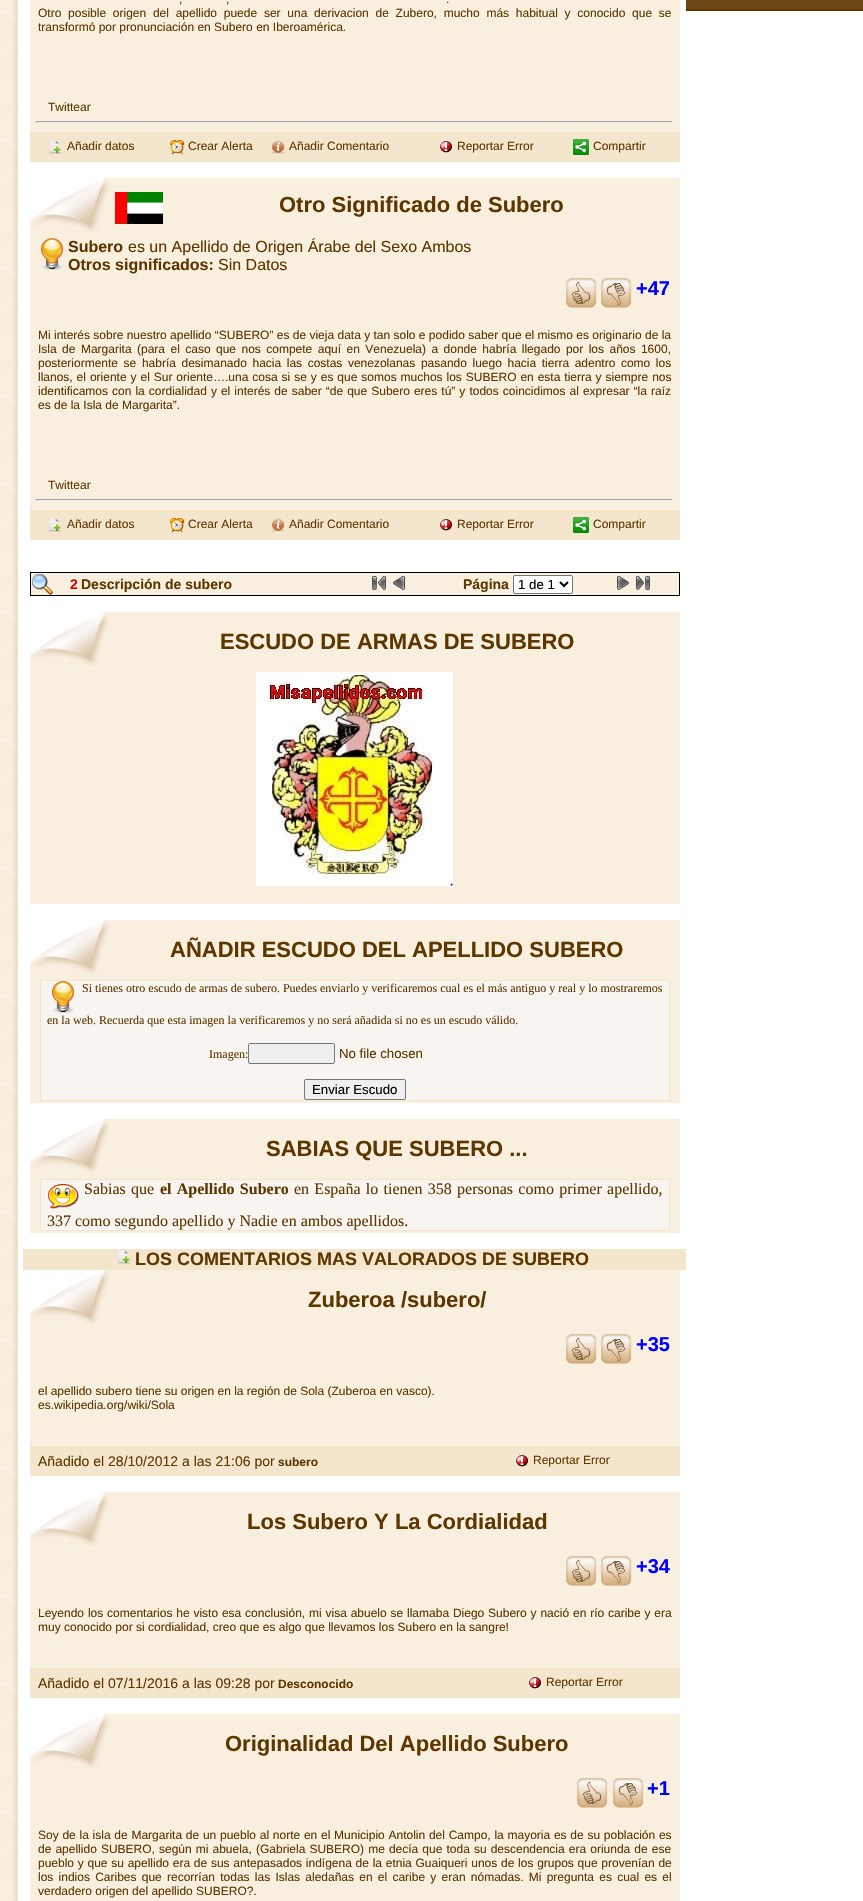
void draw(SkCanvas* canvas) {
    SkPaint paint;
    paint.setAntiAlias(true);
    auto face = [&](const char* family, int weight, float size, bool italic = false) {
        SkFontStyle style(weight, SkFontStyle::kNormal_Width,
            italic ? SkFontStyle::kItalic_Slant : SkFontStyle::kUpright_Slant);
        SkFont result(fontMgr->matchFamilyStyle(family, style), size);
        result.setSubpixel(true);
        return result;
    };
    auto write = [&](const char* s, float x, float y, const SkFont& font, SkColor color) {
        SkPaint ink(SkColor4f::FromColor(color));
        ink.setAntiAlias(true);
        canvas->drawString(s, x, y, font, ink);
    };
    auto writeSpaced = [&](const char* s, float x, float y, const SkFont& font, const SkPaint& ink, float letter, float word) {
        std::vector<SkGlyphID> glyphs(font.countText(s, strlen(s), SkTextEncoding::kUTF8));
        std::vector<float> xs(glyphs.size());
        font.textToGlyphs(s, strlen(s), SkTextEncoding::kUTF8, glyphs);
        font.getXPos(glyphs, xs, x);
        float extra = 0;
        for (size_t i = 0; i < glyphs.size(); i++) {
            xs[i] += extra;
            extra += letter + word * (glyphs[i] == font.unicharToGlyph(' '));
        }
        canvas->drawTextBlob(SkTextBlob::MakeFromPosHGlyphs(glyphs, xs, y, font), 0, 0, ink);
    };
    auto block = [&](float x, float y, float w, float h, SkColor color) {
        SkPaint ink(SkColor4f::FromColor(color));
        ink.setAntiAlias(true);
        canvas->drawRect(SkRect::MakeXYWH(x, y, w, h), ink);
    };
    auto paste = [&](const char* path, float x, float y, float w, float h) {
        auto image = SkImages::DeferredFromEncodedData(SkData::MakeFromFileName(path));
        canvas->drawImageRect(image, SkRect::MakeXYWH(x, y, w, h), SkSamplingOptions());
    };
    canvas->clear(SK_ColorWHITE);
    paste("pic1.png", 0, 0, 18, 1901);
    paste("pic2.png", 12, 0, 6, 1901);
    block(30, 0, 650, 132, SkColorSetRGB(248, 239, 223));
    auto kFont1 = face("Liberation Sans", 400, 12);
    write(",", 179, 3, kFont1, SkColorSetRGB(94, 55, 0));
    write(",", 226, 3, kFont1, SkColorSetRGB(94, 55, 0));
    write(".", 446, 3, kFont1, SkColorSetRGB(94, 55, 0));
    paint.setColor(SkColorSetRGB(94, 55, 0));
    writeSpaced("Otro posible origen del apellido puede ser una derivacion de Zubero, mucho más habitual y conocido que se", 38, 17, kFont1, paint, 0, 3.4f);
    write("transformó por pronunciación en Subero en Iberoamérica.", 38, 31, kFont1, SkColorSetRGB(94, 55, 0));
    write("Twittear", 48, 111, kFont1, SkColorSetRGB(94, 55, 0));
    block(36, 121, 637, 1, SkColorSetRGB(159, 159, 159));
    block(672, 121, 1, 2, SkColorSetRGB(238, 238, 238));
    block(36, 122, 637, 1, SkColorSetRGB(238, 238, 238));
    block(36, 121, 1, 2, SkColorSetRGB(159, 159, 159));
    block(30, 132, 650, 30, SkColorSetRGB(244, 230, 204));
    paste("pic3.png", 48, 140, 14, 14);
    write("Añadir datos", 67, 150, kFont1, SkColorSetRGB(94, 55, 0));
    paste("pic4.png", 170, 140, 15, 15);
    write("Crear Alerta", 188, 150, kFont1, SkColorSetRGB(94, 55, 0));
    paste("pic5.png", 271, 140, 14, 14);
    write("Añadir Comentario", 289, 150, kFont1, SkColorSetRGB(94, 55, 0));
    paste("pic6.png", 440, 141, 12, 12);
    write("Reportar Error", 457, 150, kFont1, SkColorSetRGB(94, 55, 0));
    paste("pic7.png", 573, 139, 16, 16);
    write("Compartir", 593, 150, kFont1, SkColorSetRGB(94, 55, 0));
    block(30, 178, 650, 332, SkColorSetRGB(248, 239, 223));
    paste("pic8.png", 30, 178, 79, 54);
    paste("pic9.png", 115, 192, 48, 32);
    auto kFont2 = face("Liberation Sans", 700, 22);
    write("Otro Significado de Subero", 279, 212, kFont2, SkColorSetRGB(94, 55, 0));
    paste("pic10.png", 41, 238, 22, 32);
    auto kFont3 = face("Liberation Sans", 700, 16);
    write("Subero", 68, 252, kFont3, SkColorSetRGB(94, 55, 0));
    auto kFont4 = face("Liberation Sans", 400, 16);
    write("es un Apellido de Origen Árabe del Sexo Ambos", 128, 252, kFont4, SkColorSetRGB(94, 55, 0));
    write("Otros significados:", 68, 270, kFont3, SkColorSetRGB(94, 55, 0));
    write("Sin Datos", 218, 270, kFont4, SkColorSetRGB(94, 55, 0));
    paste("pic11.png", 566, 278, 31, 30);
    paste("pic12.png", 601, 278, 31, 30);
    auto kFont5 = face("Liberation Sans", 700, 20);
    write("+47", 636, 295, kFont5, SkColorSetRGB(0, 0, 255));
    write("Mi interés sobre nuestro apellido “SUBERO” es de vieja data y tan solo e podido saber que el mismo es originario de la", 38, 339, kFont1, SkColorSetRGB(94, 55, 0));
    writeSpaced("Isla de Margarita (para el caso que nos compete aquí en Venezuela) a donde habría llegado por los años 1600,", 38, 353, kFont1, paint, 0, 2.1f);
    writeSpaced("posteriormente se habría desimanado hacia las costas venezolanas pasando luego hacia tierra adentro como los", 38, 367, kFont1, paint, 0, 2.25f);
    writeSpaced("llanos, el oriente y el Sur oriente….una cosa si se y es que somos muchos los SUBERO en esta tierra y siempre nos", 38, 381, kFont1, paint, 0, 0.6f);
    writeSpaced("identificamos con la cordialidad y el interés de saber “de que Subero eres tú” y todos coincidimos al expresar “la raíz", 38, 395, kFont1, paint, 0, 0.7f);
    write("es de la Isla de Margarita”.", 38, 409, kFont1, SkColorSetRGB(94, 55, 0));
    write("Twittear", 48, 489, kFont1, SkColorSetRGB(94, 55, 0));
    block(36, 499, 637, 1, SkColorSetRGB(159, 159, 159));
    block(672, 499, 1, 2, SkColorSetRGB(238, 238, 238));
    block(36, 500, 637, 1, SkColorSetRGB(238, 238, 238));
    block(36, 499, 1, 2, SkColorSetRGB(159, 159, 159));
    block(30, 510, 650, 30, SkColorSetRGB(244, 230, 204));
    paste("pic3.png", 48, 518, 14, 14);
    write("Añadir datos", 67, 528, kFont1, SkColorSetRGB(94, 55, 0));
    paste("pic4.png", 170, 518, 15, 15);
    write("Crear Alerta", 188, 528, kFont1, SkColorSetRGB(94, 55, 0));
    paste("pic5.png", 271, 518, 14, 14);
    write("Añadir Comentario", 289, 528, kFont1, SkColorSetRGB(94, 55, 0));
    paste("pic6.png", 440, 519, 12, 12);
    write("Reportar Error", 457, 528, kFont1, SkColorSetRGB(94, 55, 0));
    paste("pic7.png", 573, 517, 16, 16);
    write("Compartir", 593, 528, kFont1, SkColorSetRGB(94, 55, 0));
    block(30, 572, 650, 24, SK_ColorBLACK);
    block(31, 573, 648, 22, SkColorSetRGB(248, 239, 223));
    paste("pic13.png", 32, 574, 21, 21);
    auto kFont6 = face("Liberation Sans", 700, 14);
    write("2", 70, 589, kFont6, SkColorSetRGB(221, 0, 0));
    write("Descripción de subero", 81, 589, kFont6, SkColorSetRGB(94, 55, 0));
    paste("pic14.png", 372, 576, 14, 14);
    paste("pic15.png", 393, 576, 12, 14);
    write("Página", 463, 589, kFont6, SkColorSetRGB(94, 55, 0));
    paint.setColor(SK_ColorWHITE);
    canvas->drawRoundRect(SkRect::MakeXYWH(513.5f, 575.5f, 59, 18), 1.5f, 1.5f, paint);
    paint.setStyle(SkPaint::kStroke_Style);
    paint.setStrokeWidth(1);
    paint.setColor(SkColorSetRGB(118, 118, 118));
    canvas->drawRoundRect(SkRect::MakeXYWH(513.5f, 575.5f, 59, 18), 1.5f, 1.5f, paint);
    paint.setStrokeWidth(2);
    paint.setColor(SK_ColorBLACK);
    canvas->drawPath(SkPathBuilder().moveTo(560, 582).lineTo(564, 586).lineTo(568, 582).detach(), paint);
    auto kFont7 = face("Liberation Sans", 400, 13.25f);
    write("1 de 1", 518, 589, kFont7, SK_ColorBLACK);
    paste("pic16.png", 617, 576, 12, 14);
    paste("pic17.png", 636, 576, 14, 14);
    block(30, 612, 650, 292, SkColorSetRGB(248, 239, 223));
    paste("pic8.png", 30, 612, 79, 54);
    write("ESCUDO DE ARMAS DE SUBERO", 220, 649, kFont2, SkColorSetRGB(94, 55, 0));
    paste("pic18.png", 256, 672, 197, 214);
    block(30, 920, 650, 183, SkColorSetRGB(248, 239, 223));
    paste("pic8.png", 30, 920, 79, 54);
    write("AÑADIR ESCUDO DEL APELLIDO SUBERO", 170, 957, kFont2, SkColorSetRGB(94, 55, 0));
    paint.setStyle(SkPaint::kFill_Style);
    paint.setColor(SkColorSetRGB(248, 245, 240));
    canvas->drawRect(SkRect::MakeXYWH(40.5f, 980.5f, 629, 120), paint);
    paint.setStyle(SkPaint::kStroke_Style);
    paint.setStrokeWidth(1);
    paint.setColor(SkColorSetRGB(244, 230, 204));
    canvas->drawRect(SkRect::MakeXYWH(40.5f, 980.5f, 629, 120), paint);
    paste("pic19.png", 52, 981, 22, 32);
    auto kFont8 = face("Liberation Serif", 400, 12);
    write("Si tienes otro escudo de armas de subero. Puedes enviarlo y verificaremos cual es el más antiguo y real y lo mostraremos", 82, 992, kFont8, SkColorSetRGB(94, 55, 0));
    write("en la web. Recuerda que esta imagen la verificaremos y no será añadida si no es un escudo válido.", 47, 1024, kFont8, SkColorSetRGB(94, 55, 0));
    write("Imagen:", 209, 1058, kFont8, SkColorSetRGB(94, 55, 0));
    paint.setStyle(SkPaint::kFill_Style);
    paint.setColor(SkColorSetRGB(239, 239, 239));
    canvas->drawRoundRect(SkRect::MakeXYWH(248.5f, 1043.5f, 86, 20), 1.5f, 1.5f, paint);
    paint.setStyle(SkPaint::kStroke_Style);
    paint.setColor(SkColorSetRGB(118, 118, 118));
    canvas->drawRoundRect(SkRect::MakeXYWH(248.5f, 1043.5f, 86, 20), 1.5f, 1.5f, paint);
    write("No file chosen", 339, 1058, kFont7, SkColorSetRGB(94, 55, 0));
    paint.setStyle(SkPaint::kFill_Style);
    paint.setColor(SkColorSetRGB(239, 239, 239));
    canvas->drawRoundRect(SkRect::MakeXYWH(304.5f, 1079.5f, 101, 20), 1.5f, 1.5f, paint);
    paint.setStyle(SkPaint::kStroke_Style);
    paint.setColor(SkColorSetRGB(118, 118, 118));
    canvas->drawRoundRect(SkRect::MakeXYWH(304.5f, 1079.5f, 101, 20), 1.5f, 1.5f, paint);
    write("Enviar Escudo", 312, 1094, kFont7, SK_ColorBLACK);
    block(30, 1119, 650, 114, SkColorSetRGB(248, 239, 223));
    paste("pic8.png", 30, 1119, 79, 54);
    write("SABIAS QUE SUBERO ...", 266, 1156, kFont2, SkColorSetRGB(94, 55, 0));
    paint.setStyle(SkPaint::kFill_Style);
    paint.setColor(SkColorSetRGB(248, 245, 240));
    canvas->drawRect(SkRect::MakeXYWH(40.5f, 1179.5f, 629, 51), paint);
    paint.setStyle(SkPaint::kStroke_Style);
    paint.setColor(SkColorSetRGB(244, 230, 204));
    canvas->drawRect(SkRect::MakeXYWH(40.5f, 1179.5f, 629, 51), paint);
    paste("pic20.png", 48, 1184, 31, 25);
    auto kFont9 = face("Liberation Serif", 400, 16);
    paint.setStyle(SkPaint::kFill_Style);
    paint.setColor(SkColorSetRGB(94, 55, 0));
    writeSpaced("Sabias que", 84, 1194, kFont9, paint, 0, 1.25f);
    auto kFont10 = face("Liberation Serif", 700, 16);
    writeSpaced("el Apellido Subero", 160, 1194, kFont10, paint, 0, 1.25f);
    writeSpaced("en España lo tienen 358 personas como primer apellido,", 294, 1194, kFont9, paint, 0, 1.25f);
    write("337 como segundo apellido y Nadie en ambos apellidos.", 47, 1226, kFont9, SkColorSetRGB(94, 55, 0));
    block(23, 1249, 663, 21, SkColorSetRGB(244, 230, 204));
    paste("pic3.png", 117, 1250, 14, 14);
    auto kFont11 = face("Liberation Sans", 700, 18);
    write("LOS COMENTARIOS MAS VALORADOS DE SUBERO", 135, 1265, kFont11, SkColorSetRGB(94, 55, 0));
    block(30, 1270, 650, 176, SkColorSetRGB(248, 239, 223));
    paste("pic8.png", 30, 1270, 79, 54);
    write("Zuberoa /subero/", 308, 1307, kFont2, SkColorSetRGB(94, 55, 0));
    paste("pic11.png", 566, 1334, 31, 30);
    paste("pic12.png", 601, 1334, 31, 30);
    write("+35", 636, 1351, kFont5, SkColorSetRGB(0, 0, 255));
    write("el apellido subero tiene su origen en la región de Sola (Zuberoa en vasco).", 38, 1395, kFont1, SkColorSetRGB(94, 55, 0));
    write("es.wikipedia.org/wiki/Sola", 38, 1409, kFont1, SkColorSetRGB(94, 55, 0));
    block(30, 1446, 650, 30, SkColorSetRGB(244, 230, 204));
    auto kFont12 = face("Liberation Sans", 400, 14);
    write("Añadido el 28/10/2012 a las 21:06 por", 38, 1466, kFont12, SkColorSetRGB(94, 55, 0));
    auto kFont13 = face("Liberation Sans", 700, 12);
    write("subero", 278, 1466, kFont13, SkColorSetRGB(94, 55, 0));
    paste("pic6.png", 516, 1455, 12, 12);
    write("Reportar Error", 533, 1464, kFont1, SkColorSetRGB(94, 55, 0));
    block(30, 1492, 650, 176, SkColorSetRGB(248, 239, 223));
    paste("pic8.png", 30, 1492, 79, 54);
    write("Los Subero Y La Cordialidad", 247, 1529, kFont2, SkColorSetRGB(94, 55, 0));
    paste("pic11.png", 566, 1556, 31, 30);
    paste("pic12.png", 601, 1556, 31, 30);
    write("+34", 636, 1573, kFont5, SkColorSetRGB(0, 0, 255));
    writeSpaced("Leyendo los comentarios he visto esa conclusión, mi visa abuelo se llamaba Diego Subero y nació en río caribe y era", 38, 1617, kFont1, paint, 0, 0.5f);
    write("muy conocido por si cordialidad, creo que es algo que llevamos los Subero en la sangre!", 38, 1631, kFont1, SkColorSetRGB(94, 55, 0));
    block(30, 1668, 650, 30, SkColorSetRGB(244, 230, 204));
    write("Añadido el 07/11/2016 a las 09:28 por", 38, 1688, kFont12, SkColorSetRGB(94, 55, 0));
    write("Desconocido", 278, 1688, kFont13, SkColorSetRGB(94, 55, 0));
    paste("pic6.png", 529, 1677, 12, 12);
    write("Reportar Error", 546, 1686, kFont1, SkColorSetRGB(94, 55, 0));
    block(30, 1714, 650, 187, SkColorSetRGB(248, 239, 223));
    paste("pic8.png", 30, 1714, 79, 54);
    write("Originalidad Del Apellido Subero", 225, 1751, kFont2, SkColorSetRGB(94, 55, 0));
    paste("pic11.png", 577, 1778, 31, 30);
    paste("pic12.png", 613, 1778, 31, 30);
    write("+1", 647, 1795, kFont5, SkColorSetRGB(0, 0, 255));
    writeSpaced("Soy de la isla de Margarita de un pueblo al norte en el Municipio Antolin del Campo, la mayoria es de su población es", 38, 1839, kFont1, paint, 0, 0.4f);
    writeSpaced("de apellido SUBERO, según mi abuela, (Gabriela SUBERO) me decía que toda su descendencia era oriunda de ese", 38, 1853, kFont1, paint, 0, 0.75f);
    writeSpaced("pueblo y que su apellido era de sus antepasados indígena de la etnia Guaiqueri unos de los grupos que provenían de", 38, 1867, kFont1, paint, 0, 0.4f);
    writeSpaced("los indios Caribes que recorrían todas las Islas aledañas en el caribe y eran nómadas. Mi pregunta es cual es el", 38, 1881, kFont1, paint, 0, 1.9f);
    write("verdadero origen del apellido SUBERO?.", 38, 1895, kFont1, SkColorSetRGB(94, 55, 0));
    block(686, 0, 177, 9, SkColorSetRGB(107, 71, 20));
    block(686, 9, 177, 2, SkColorSetRGB(94, 55, 0));
}
